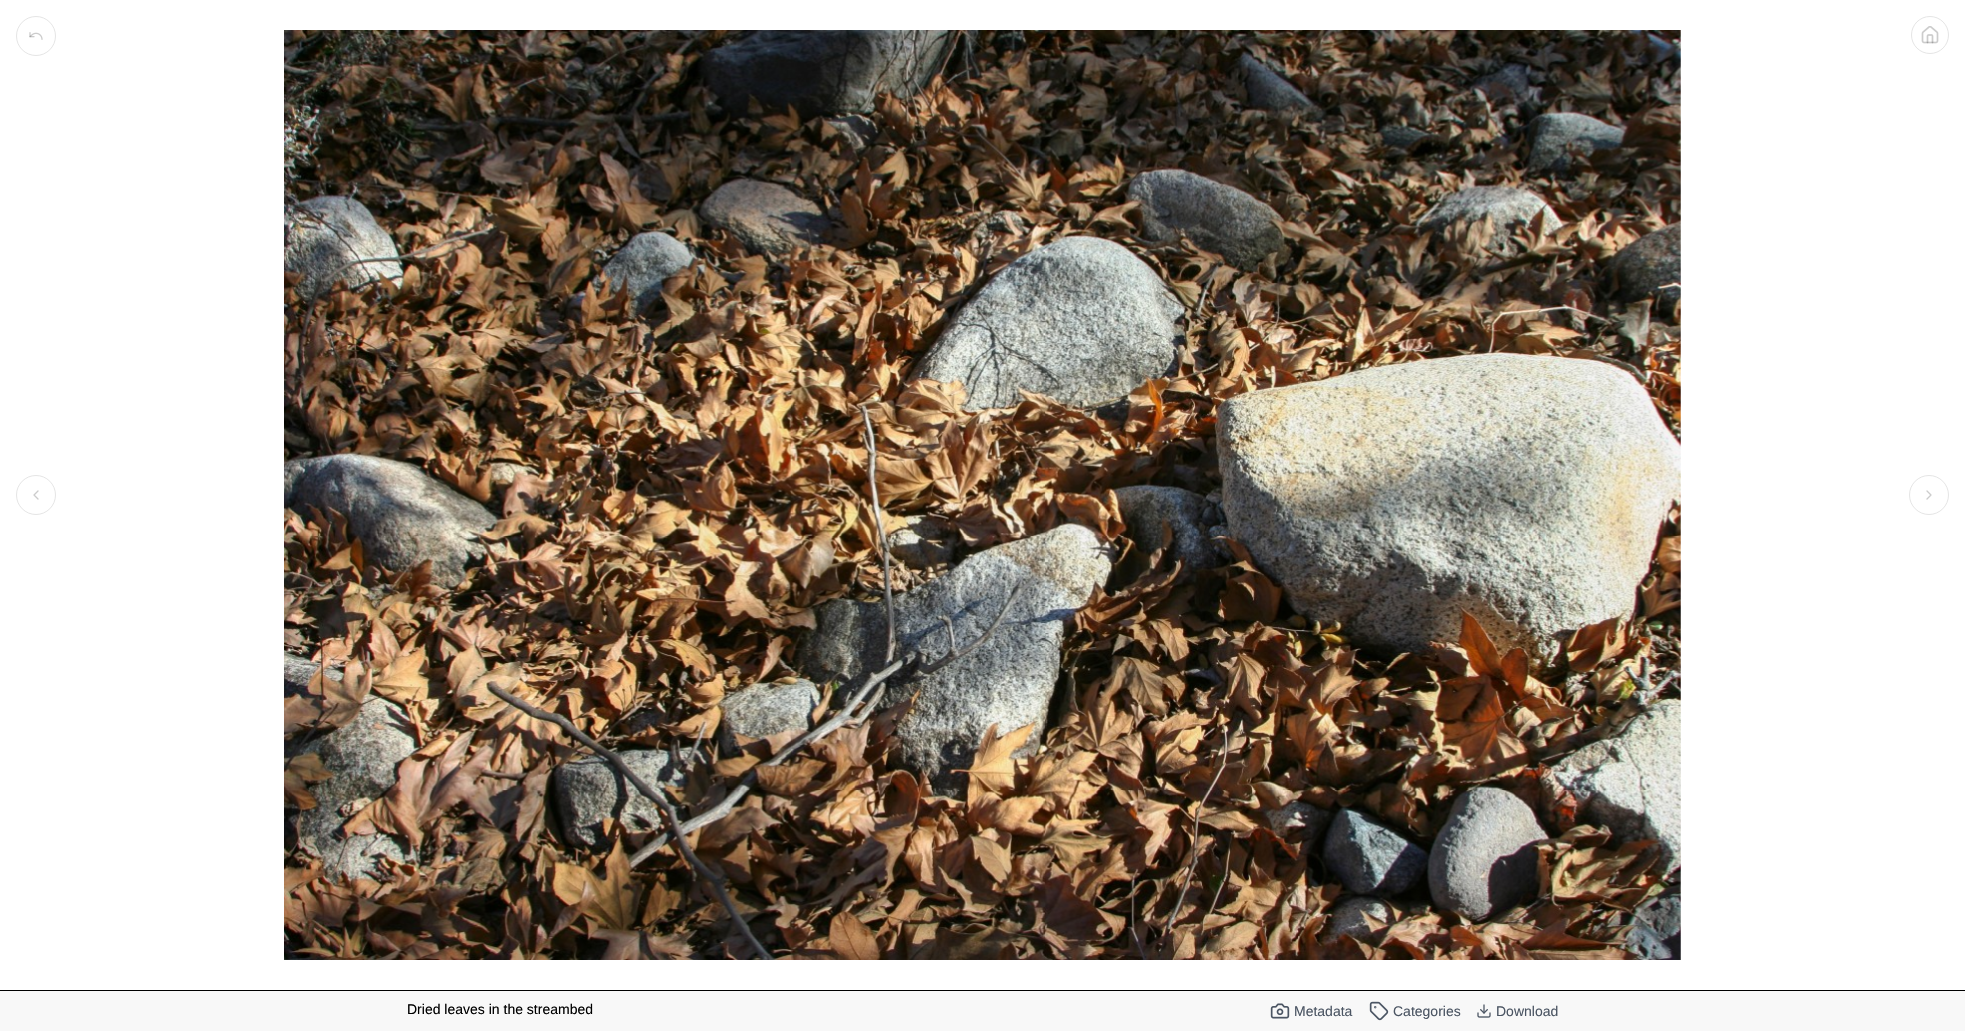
void draw(SkCanvas* canvas) {
    SkPaint paint;
    paint.setAntiAlias(true);
    auto face = [&](const char* family, int weight, float size, bool italic = false) {
        SkFontStyle style(weight, SkFontStyle::kNormal_Width,
            italic ? SkFontStyle::kItalic_Slant : SkFontStyle::kUpright_Slant);
        SkFont result(fontMgr->matchFamilyStyle(family, style), size);
        result.setSubpixel(true);
        return result;
    };
    auto write = [&](const char* s, float x, float y, const SkFont& font, SkColor color) {
        SkPaint ink(SkColor4f::FromColor(color));
        ink.setAntiAlias(true);
        canvas->drawString(s, x, y, font, ink);
    };
    auto block = [&](float x, float y, float w, float h, SkColor color) {
        SkPaint ink(SkColor4f::FromColor(color));
        ink.setAntiAlias(true);
        canvas->drawRect(SkRect::MakeXYWH(x, y, w, h), ink);
    };
    auto paste = [&](const char* path, float x, float y, float w, float h) {
        auto image = SkImages::DeferredFromEncodedData(SkData::MakeFromFileName(path));
        canvas->drawImageRect(image, SkRect::MakeXYWH(x, y, w, h), SkSamplingOptions());
    };
    canvas->clear(SK_ColorWHITE);
    paint.setStyle(SkPaint::kStroke_Style);
    paint.setStrokeWidth(1);
    paint.setColor(SkColorSetRGB(229, 229, 229));
    canvas->drawCircle(36, 36, 19.5f, paint);
    paste("pic1.png", 29, 32, 14, 8);
    paste("pic2.png", 284, 30, 1397, 930);
    canvas->drawCircle(1930, 35, 18.5f, paint);
    paste("pic3.png", 1921, 26, 18, 18);
    canvas->drawCircle(36, 495, 19.5f, paint);
    paint.setStrokeWidth(1.3f);
    paint.setStrokeCap(SkPaint::kRound_Cap);
    paint.setStrokeJoin(SkPaint::kRound_Join);
    paint.setColor(SkColorSetRGB(204, 204, 204));
    canvas->drawPath(SkPathBuilder().moveTo(38, 499).lineTo(34, 495).lineTo(38, 491).detach(), paint);
    paint.setStrokeWidth(1);
    paint.setStrokeCap(SkPaint::kButt_Cap);
    paint.setStrokeJoin(SkPaint::kMiter_Join);
    paint.setColor(SkColorSetRGB(229, 229, 229));
    canvas->drawCircle(1929, 495, 19.5f, paint);
    paint.setStrokeWidth(1.3f);
    paint.setStrokeCap(SkPaint::kRound_Cap);
    paint.setStrokeJoin(SkPaint::kRound_Join);
    paint.setColor(SkColorSetRGB(204, 204, 204));
    canvas->drawPath(SkPathBuilder().moveTo(1927, 499).lineTo(1931, 495).lineTo(1927, 491).detach(), paint);
    block(0, 991, 1965, 40, SkColorSetRGB(248, 248, 248));
    block(0, 990, 1965, 1, SK_ColorBLACK);
    auto kFont1 = face("Liberation Sans", 400, 14);
    write("Dried leaves in the streambed", 407, 1014, kFont1, SK_ColorBLACK);
    paste("pic4.png", 1270, 1003, 20, 16);
    write("Metadata", 1294, 1016, kFont1, SkColorSetRGB(75, 85, 99));
    paste("pic5.png", 1369, 1001, 20, 20);
    write("Categories", 1393, 1016, kFont1, SkColorSetRGB(75, 85, 99));
    paste("pic6.png", 1477, 1004, 14, 14);
    write("Download", 1496, 1016, kFont1, SkColorSetRGB(75, 85, 99));
}
